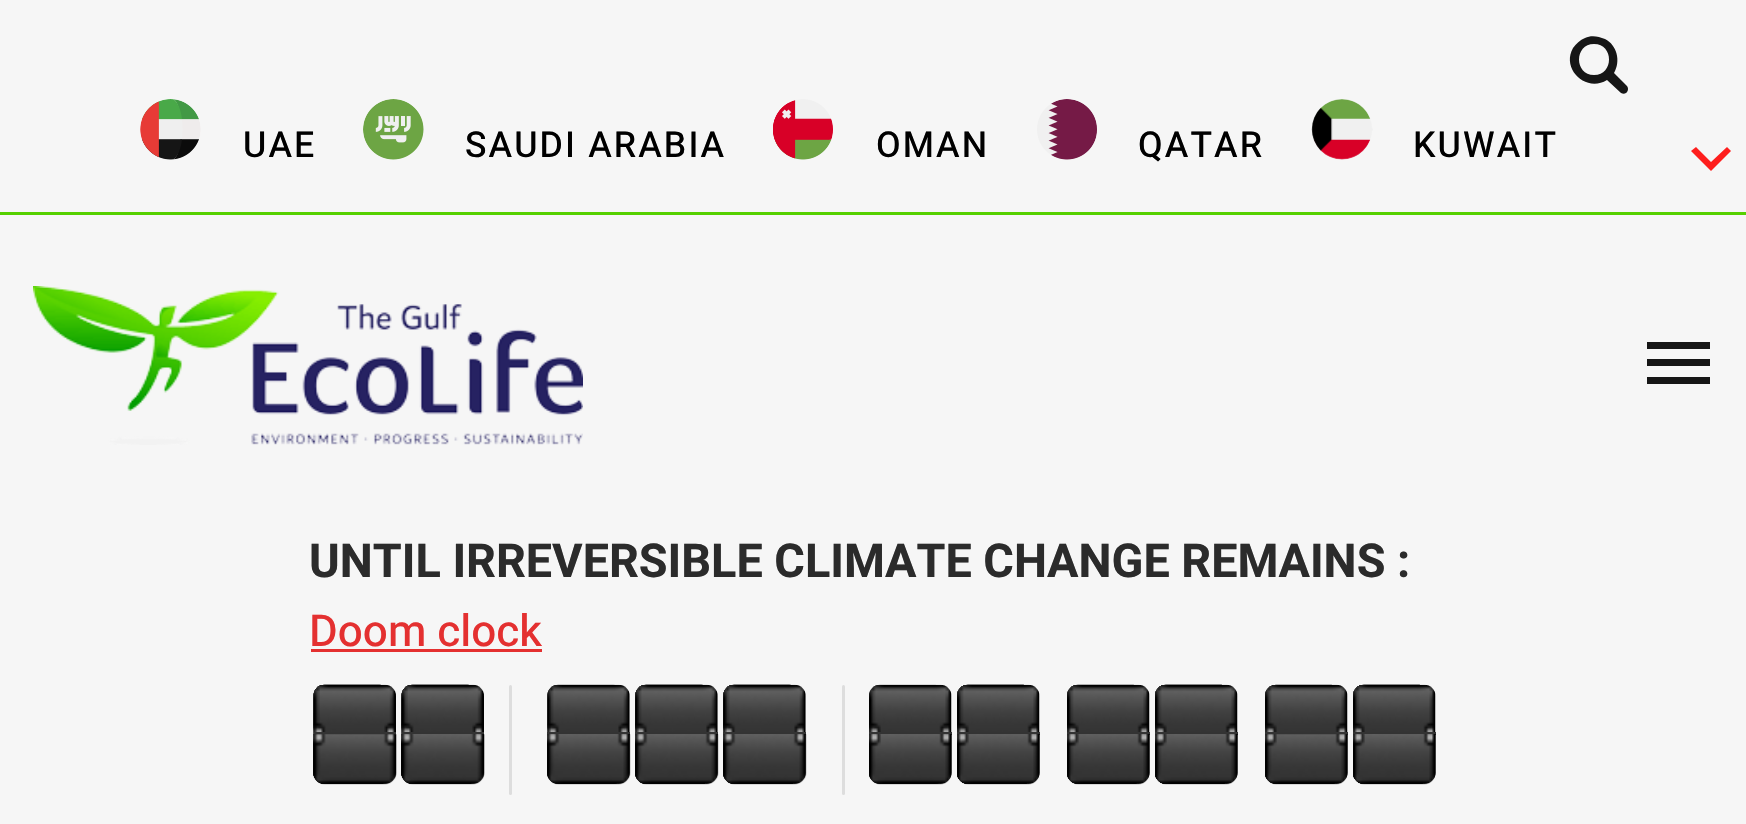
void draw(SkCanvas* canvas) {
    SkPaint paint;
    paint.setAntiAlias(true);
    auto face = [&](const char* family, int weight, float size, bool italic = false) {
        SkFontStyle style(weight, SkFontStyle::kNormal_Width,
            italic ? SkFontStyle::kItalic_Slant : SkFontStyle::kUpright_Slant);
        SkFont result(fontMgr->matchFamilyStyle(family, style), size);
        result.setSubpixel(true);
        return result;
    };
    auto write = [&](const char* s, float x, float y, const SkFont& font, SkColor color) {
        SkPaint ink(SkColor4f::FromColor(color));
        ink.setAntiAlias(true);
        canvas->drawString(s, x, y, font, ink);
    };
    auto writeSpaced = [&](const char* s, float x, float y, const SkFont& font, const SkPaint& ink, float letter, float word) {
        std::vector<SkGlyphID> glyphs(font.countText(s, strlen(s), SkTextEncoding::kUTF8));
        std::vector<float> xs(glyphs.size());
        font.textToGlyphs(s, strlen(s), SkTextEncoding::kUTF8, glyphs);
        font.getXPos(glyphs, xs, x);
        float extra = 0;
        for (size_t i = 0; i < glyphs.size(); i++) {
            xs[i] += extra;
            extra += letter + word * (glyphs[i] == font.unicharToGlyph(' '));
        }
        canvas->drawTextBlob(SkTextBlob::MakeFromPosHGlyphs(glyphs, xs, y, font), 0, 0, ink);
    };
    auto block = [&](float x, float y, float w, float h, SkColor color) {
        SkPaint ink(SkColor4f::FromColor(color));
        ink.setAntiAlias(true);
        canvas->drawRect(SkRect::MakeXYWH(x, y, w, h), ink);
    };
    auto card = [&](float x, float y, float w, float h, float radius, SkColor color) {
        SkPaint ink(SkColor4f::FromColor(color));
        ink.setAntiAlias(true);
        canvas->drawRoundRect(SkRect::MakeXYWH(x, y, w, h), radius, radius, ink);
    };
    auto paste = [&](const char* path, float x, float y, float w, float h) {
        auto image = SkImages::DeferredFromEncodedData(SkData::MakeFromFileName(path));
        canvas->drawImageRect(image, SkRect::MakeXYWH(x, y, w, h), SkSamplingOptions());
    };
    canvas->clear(SkColorSetRGB(246, 246, 246));
    block(0, 212, 1746, 3, SkColorSetRGB(85, 208, 0));
    paint.setColor(SkColorSetRGB(22, 22, 22));
    canvas->drawPath(SkPathBuilder().moveTo(1627, 86).lineTo(1614, 73).cubicTo(1621, 61, 1617, 45, 1605, 39).cubicTo(1598, 36, 1591, 35, 1585, 38).cubicTo(1580, 40, 1576, 44, 1573, 48).cubicTo(1561, 69, 1586, 93, 1607, 80).lineTo(1621, 93).cubicTo(1626, 96, 1630, 90, 1627, 86).close().moveTo(1594, 75).cubicTo(1574, 75, 1574, 44, 1594, 44).cubicTo(1614, 44, 1614, 75, 1594, 75).close().detach(), paint);
    paste("pic1.png", 140, 99, 61, 61);
    auto kFont1 = face("Heebo", 500, 35.75f);
    paint.setColor(SK_ColorBLACK);
    writeSpaced("UAE", 243, 157, kFont1, paint, 2.1f, 0);
    paste("pic2.png", 363, 99, 61, 61);
    writeSpaced("SAUDI ARABIA", 465, 157, kFont1, paint, 2.1f, 0);
    paste("pic3.png", 773, 99, 60, 61);
    writeSpaced("OMAN", 876, 157, kFont1, paint, 2.1f, 0);
    paste("pic4.png", 1037, 99, 60, 61);
    writeSpaced("QATAR", 1138, 157, kFont1, paint, 2.1f, 0);
    paste("pic5.png", 1311, 99, 62, 61);
    writeSpaced("KUWAIT", 1413, 157, kFont1, paint, 2.1f, 0);
    paint.setColor(SkColorSetRGB(254, 30, 29));
    canvas->drawPath(SkPathBuilder().moveTo(1696, 147).lineTo(1691, 151).lineTo(1711, 171).lineTo(1731, 151).lineTo(1727, 147).lineTo(1711, 162).close().detach(), paint);
    paste("pic6.png", 33, 286, 550, 159);
    paint.setColor(SkColorSetRGB(22, 22, 22));
    canvas->drawPath(SkPathBuilder().moveTo(1647, 384).lineTo(1710, 384).lineTo(1710, 377).lineTo(1647, 377).close().moveTo(1647, 366).lineTo(1710, 366).lineTo(1710, 359).lineTo(1647, 359).close().moveTo(1647, 342).lineTo(1647, 349).lineTo(1710, 349).lineTo(1710, 342).close().detach(), paint);
    auto kFont2 = face("Heebo", 700, 46.75f);
    write("UNTIL IRREVERSIBLE CLIMATE CHANGE REMAINS :", 309, 577, kFont2, SkColorSetRGB(43, 43, 43));
    auto kFont3 = face("Heebo", 500, 44);
    write("Doom clock", 309, 646, kFont3, SkColorSetRGB(228, 48, 48));
    block(311, 649, 231, 3, SkColorSetRGB(228, 48, 48));
    paste("pic7.png", 313, 684, 68, 50);
    paste("pic8.png", 313, 734, 71, 50);
    paste("pic9.png", 313, 684, 68, 50);
    paste("pic10.png", 313, 734, 71, 50);
    paste("pic11.png", 313, 684, 68, 50);
    paste("pic12.png", 313, 734, 71, 50);
    paste("pic13.png", 313, 684, 68, 50);
    paste("pic14.png", 313, 734, 71, 50);
    paste("pic15.png", 313, 684, 68, 50);
    paste("pic16.png", 313, 734, 71, 50);
    paste("pic17.png", 313, 684, 68, 50);
    paste("pic18.png", 313, 734, 71, 50);
    paste("pic19.png", 313, 684, 68, 50);
    paste("pic20.png", 313, 734, 71, 50);
    paste("pic21.png", 313, 684, 68, 50);
    paste("pic22.png", 313, 734, 71, 50);
    paste("pic23.png", 313, 684, 83, 50);
    paste("pic25.png", 313, 734, 71, 50);
    paste("pic26.png", 313, 734, 83, 50);
    block(314, 732, 82, 3, SkColorSetRGB(51, 51, 51));
    paste("pic24.png", 313, 734, 84, 51);
    paste("pic7.png", 401, 684, 68, 50);
    paste("pic8.png", 401, 734, 71, 50);
    paste("pic9.png", 401, 684, 68, 50);
    paste("pic10.png", 401, 734, 71, 50);
    paste("pic11.png", 401, 684, 68, 50);
    paste("pic12.png", 401, 734, 71, 50);
    paste("pic13.png", 401, 684, 68, 50);
    paste("pic14.png", 401, 734, 71, 50);
    paste("pic15.png", 401, 684, 68, 50);
    paste("pic16.png", 401, 734, 71, 50);
    paste("pic17.png", 401, 684, 68, 50);
    paste("pic18.png", 401, 734, 71, 50);
    paste("pic19.png", 401, 684, 68, 50);
    paste("pic20.png", 401, 734, 71, 50);
    paste("pic21.png", 401, 684, 68, 50);
    paste("pic22.png", 401, 734, 71, 50);
    paste("pic27.png", 401, 684, 83, 50);
    block(402, 732, 82, 3, SkColorSetRGB(51, 51, 51));
    paste("pic29.png", 401, 734, 78, 50);
    paste("pic30.png", 401, 734, 83, 50);
    paste("pic28.png", 401, 734, 84, 51);
    card(509, 685, 3, 110, 1.5f, SkColorSetRGB(221, 221, 221));
    paste("pic31.png", 547, 684, 68, 48);
    paste("pic32.png", 547, 735, 70, 49);
    paste("pic33.png", 547, 684, 68, 48);
    paste("pic34.png", 547, 735, 70, 49);
    paste("pic35.png", 547, 684, 83, 48);
    block(547, 732, 83, 3, SkColorSetRGB(51, 51, 51));
    paste("pic37.png", 547, 734, 78, 50);
    paste("pic38.png", 547, 734, 83, 50);
    paste("pic36.png", 547, 734, 84, 51);
    paste("pic31.png", 635, 684, 68, 48);
    paste("pic32.png", 635, 735, 70, 49);
    paste("pic33.png", 635, 684, 68, 48);
    paste("pic34.png", 635, 735, 70, 49);
    paste("pic39.png", 635, 684, 68, 48);
    paste("pic40.png", 635, 735, 70, 49);
    paste("pic41.png", 635, 684, 68, 48);
    paste("pic42.png", 635, 735, 70, 49);
    paste("pic43.png", 635, 684, 68, 48);
    paste("pic44.png", 635, 735, 70, 49);
    paste("pic45.png", 635, 684, 68, 48);
    paste("pic46.png", 635, 735, 70, 49);
    paste("pic47.png", 635, 684, 68, 48);
    paste("pic48.png", 635, 735, 70, 49);
    paste("pic49.png", 635, 684, 68, 48);
    paste("pic50.png", 635, 735, 70, 49);
    paste("pic51.png", 635, 684, 83, 48);
    block(635, 732, 83, 3, SkColorSetRGB(51, 51, 51));
    paste("pic53.png", 635, 734, 78, 50);
    paste("pic54.png", 635, 734, 83, 50);
    paste("pic52.png", 635, 734, 84, 51);
    paste("pic55.png", 723, 684, 68, 48);
    paste("pic32.png", 723, 735, 70, 49);
    paste("pic56.png", 723, 684, 68, 48);
    paste("pic34.png", 723, 735, 70, 49);
    paste("pic57.png", 723, 684, 68, 48);
    paste("pic40.png", 723, 735, 70, 49);
    paste("pic58.png", 723, 684, 68, 48);
    paste("pic42.png", 723, 735, 70, 49);
    paste("pic59.png", 723, 684, 68, 48);
    paste("pic44.png", 723, 735, 70, 49);
    paste("pic60.png", 723, 684, 68, 48);
    paste("pic46.png", 723, 735, 70, 49);
    paste("pic61.png", 723, 684, 68, 48);
    paste("pic48.png", 723, 735, 70, 49);
    paste("pic62.png", 723, 684, 68, 48);
    paste("pic50.png", 723, 735, 70, 49);
    paste("pic63.png", 723, 684, 83, 48);
    block(723, 732, 83, 3, SkColorSetRGB(51, 51, 51));
    paste("pic53.png", 723, 734, 78, 50);
    paste("pic65.png", 723, 734, 83, 50);
    paste("pic64.png", 723, 734, 84, 51);
    card(842, 685, 3, 110, 1.5f, SkColorSetRGB(221, 221, 221));
    paste("pic66.png", 869, 684, 67, 11);
    paste("pic67.png", 869, 773, 70, 11);
    paste("pic68.png", 869, 684, 83, 48);
    block(869, 732, 83, 3, SkColorSetRGB(51, 51, 51));
    paste("pic70.png", 869, 734, 77, 50);
    paste("pic71.png", 869, 734, 83, 50);
    paste("pic69.png", 869, 734, 83, 51);
    paste("pic66.png", 957, 684, 67, 11);
    paste("pic67.png", 957, 773, 70, 11);
    paste("pic72.png", 957, 684, 67, 11);
    paste("pic73.png", 957, 773, 70, 11);
    paste("pic74.png", 957, 684, 67, 11);
    paste("pic75.png", 957, 773, 70, 11);
    paste("pic76.png", 957, 684, 67, 11);
    paste("pic77.png", 957, 773, 70, 11);
    paste("pic78.png", 957, 684, 67, 11);
    paste("pic79.png", 957, 773, 70, 11);
    paste("pic80.png", 957, 684, 67, 11);
    paste("pic81.png", 957, 773, 70, 11);
    paste("pic82.png", 957, 684, 67, 11);
    paste("pic83.png", 957, 773, 70, 11);
    paste("pic84.png", 957, 684, 67, 11);
    paste("pic85.png", 957, 773, 70, 11);
    paste("pic86.png", 957, 684, 83, 48);
    block(957, 732, 83, 3, SkColorSetRGB(51, 51, 51));
    paste("pic88.png", 957, 734, 77, 50);
    paste("pic89.png", 957, 734, 83, 50);
    paste("pic87.png", 957, 734, 83, 51);
    paste("pic90.png", 1067, 684, 67, 11);
    paste("pic67.png", 1067, 773, 70, 11);
    paste("pic91.png", 1067, 684, 67, 11);
    paste("pic73.png", 1067, 773, 70, 11);
    paste("pic92.png", 1067, 684, 67, 11);
    paste("pic75.png", 1067, 773, 70, 11);
    paste("pic93.png", 1067, 684, 67, 11);
    paste("pic77.png", 1067, 773, 70, 11);
    paste("pic94.png", 1067, 684, 83, 48);
    block(1067, 732, 83, 3, SkColorSetRGB(51, 51, 51));
    paste("pic96.png", 1067, 734, 77, 50);
    paste("pic97.png", 1067, 734, 83, 50);
    paste("pic95.png", 1067, 734, 83, 51);
    paste("pic90.png", 1155, 684, 67, 11);
    paste("pic67.png", 1155, 773, 70, 11);
    paste("pic91.png", 1155, 684, 67, 11);
    paste("pic73.png", 1155, 773, 70, 11);
    paste("pic92.png", 1155, 684, 67, 11);
    paste("pic75.png", 1155, 773, 70, 11);
    paste("pic93.png", 1155, 684, 67, 11);
    paste("pic77.png", 1155, 773, 70, 11);
    paste("pic98.png", 1155, 684, 67, 11);
    paste("pic79.png", 1155, 773, 70, 11);
    paste("pic99.png", 1155, 684, 67, 11);
    paste("pic81.png", 1155, 773, 70, 11);
    paste("pic100.png", 1155, 684, 67, 11);
    paste("pic83.png", 1155, 773, 70, 11);
    paste("pic101.png", 1155, 684, 67, 11);
    paste("pic85.png", 1155, 773, 70, 11);
    paste("pic102.png", 1155, 684, 83, 48);
    block(1155, 732, 83, 3, SkColorSetRGB(51, 51, 51));
    paste("pic88.png", 1155, 734, 77, 50);
    paste("pic104.png", 1155, 734, 83, 50);
    paste("pic103.png", 1155, 734, 83, 51);
    paste("pic105.png", 1265, 684, 67, 11);
    paste("pic106.png", 1265, 773, 70, 11);
    paste("pic107.png", 1265, 684, 67, 11);
    paste("pic108.png", 1265, 773, 70, 11);
    paste("pic109.png", 1265, 684, 67, 11);
    paste("pic110.png", 1265, 773, 70, 11);
    paste("pic111.png", 1265, 684, 67, 11);
    paste("pic112.png", 1265, 773, 70, 11);
    paste("pic113.png", 1265, 684, 83, 48);
    block(1265, 732, 83, 3, SkColorSetRGB(51, 51, 51));
    paste("pic116.png", 1265, 773, 70, 11);
    paste("pic115.png", 1265, 735, 83, 49);
    paste("pic114.png", 1265, 734, 83, 51);
    paste("pic66.png", 1353, 684, 67, 11);
    paste("pic67.png", 1353, 773, 70, 11);
    paste("pic72.png", 1353, 684, 67, 11);
    paste("pic73.png", 1353, 773, 70, 11);
    paste("pic74.png", 1353, 684, 67, 11);
    paste("pic75.png", 1353, 773, 70, 11);
    paste("pic76.png", 1353, 684, 67, 11);
    paste("pic77.png", 1353, 773, 70, 11);
    paste("pic78.png", 1353, 684, 67, 11);
    paste("pic79.png", 1353, 773, 70, 11);
    paste("pic80.png", 1353, 684, 67, 11);
    paste("pic81.png", 1353, 773, 70, 11);
    paste("pic82.png", 1353, 684, 67, 11);
    paste("pic83.png", 1353, 773, 70, 11);
    paste("pic84.png", 1353, 684, 67, 11);
    paste("pic85.png", 1353, 773, 70, 11);
    paste("pic117.png", 1353, 684, 83, 48);
    block(1353, 732, 83, 3, SkColorSetRGB(51, 51, 51));
    paste("pic88.png", 1353, 734, 77, 50);
    paste("pic119.png", 1353, 734, 83, 50);
    paste("pic118.png", 1353, 734, 83, 51);
}
